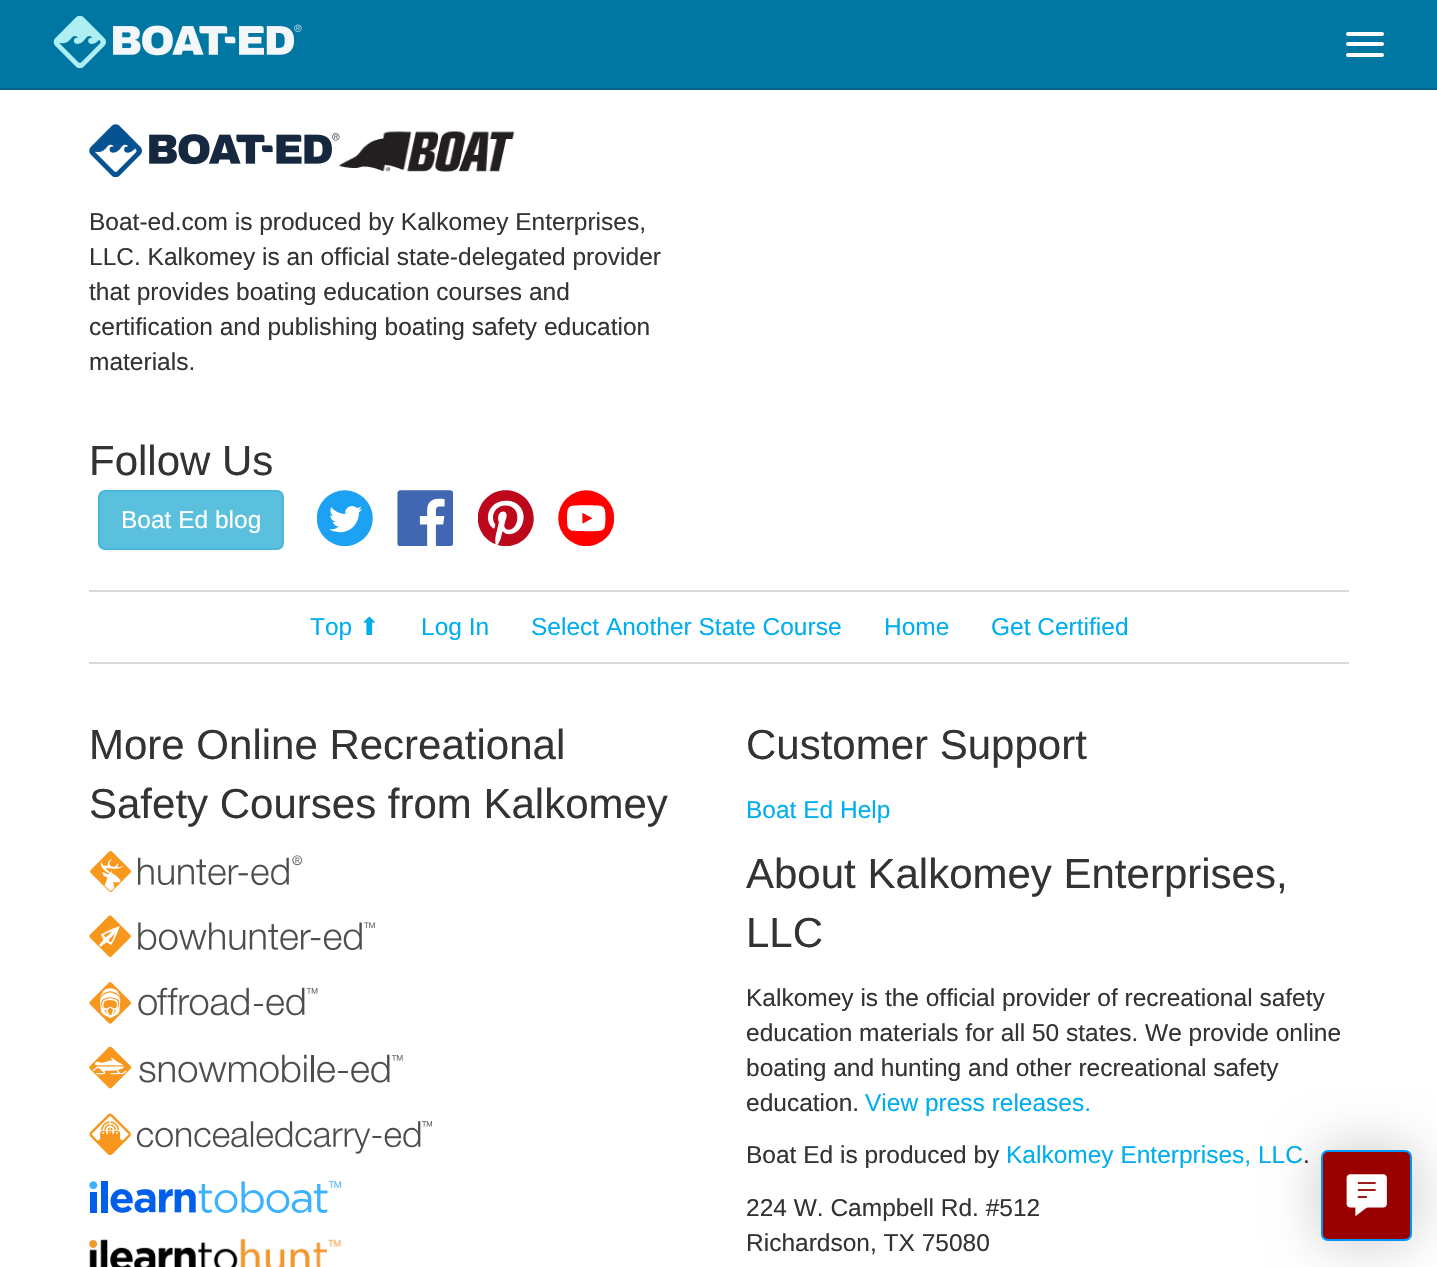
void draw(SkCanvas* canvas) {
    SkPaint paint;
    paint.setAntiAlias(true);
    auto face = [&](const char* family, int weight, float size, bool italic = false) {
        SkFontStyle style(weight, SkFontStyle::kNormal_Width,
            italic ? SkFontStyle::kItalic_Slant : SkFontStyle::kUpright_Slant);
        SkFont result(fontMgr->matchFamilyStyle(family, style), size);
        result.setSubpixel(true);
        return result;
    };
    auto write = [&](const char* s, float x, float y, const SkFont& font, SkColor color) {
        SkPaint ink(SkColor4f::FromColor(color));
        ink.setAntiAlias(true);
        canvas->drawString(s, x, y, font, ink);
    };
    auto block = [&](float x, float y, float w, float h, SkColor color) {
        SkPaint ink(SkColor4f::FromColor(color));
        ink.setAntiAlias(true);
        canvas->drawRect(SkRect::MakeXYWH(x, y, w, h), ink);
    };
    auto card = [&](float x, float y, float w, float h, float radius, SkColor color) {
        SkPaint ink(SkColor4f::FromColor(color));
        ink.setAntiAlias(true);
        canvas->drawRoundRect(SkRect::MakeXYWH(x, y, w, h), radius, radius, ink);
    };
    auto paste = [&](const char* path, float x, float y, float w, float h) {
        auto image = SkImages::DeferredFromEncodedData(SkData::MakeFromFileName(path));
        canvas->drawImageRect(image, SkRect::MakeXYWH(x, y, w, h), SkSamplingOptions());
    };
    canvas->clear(SK_ColorWHITE);
    block(0, 0, 1437, 88, SkColorSetRGB(0, 118, 162));
    block(0, 88, 1437, 2, SkColorSetRGB(0, 99, 137));
    paste("pic1.png", 53, 16, 249, 52);
    card(1346, 32, 38, 4, 2, SK_ColorWHITE);
    card(1346, 42, 38, 4, 2, SK_ColorWHITE);
    card(1346, 53, 38, 4, 2, SK_ColorWHITE);
    paste("pic2.png", 89, 124, 251, 53);
    paste("pic3.png", 339, 131, 176, 41);
    auto kFont1 = face("Liberation Sans", 400, 24.5f);
    write("Boat-ed.com is produced by Kalkomey Enterprises,", 89, 230, kFont1, SkColorSetRGB(51, 51, 51));
    write("LLC. Kalkomey is an official state-delegated provider", 89, 265, kFont1, SkColorSetRGB(51, 51, 51));
    write("that provides boating education courses and", 89, 300, kFont1, SkColorSetRGB(51, 51, 51));
    write("certification and publishing boating safety education", 89, 335, kFont1, SkColorSetRGB(51, 51, 51));
    write("materials.", 89, 370, kFont1, SkColorSetRGB(51, 51, 51));
    auto kFont2 = face("Liberation Sans", 400, 42);
    write("Follow Us", 89, 475, kFont2, SkColorSetRGB(51, 51, 51));
    paint.setColor(SkColorSetRGB(91, 192, 222));
    canvas->drawRoundRect(SkRect::MakeXYWH(99, 491, 184, 58), 6, 6, paint);
    paint.setStyle(SkPaint::kStroke_Style);
    paint.setStrokeWidth(2);
    paint.setColor(SkColorSetRGB(70, 184, 218));
    canvas->drawRoundRect(SkRect::MakeXYWH(99, 491, 184, 58), 6, 6, paint);
    write("Boat Ed blog", 121, 528, kFont1, SK_ColorWHITE);
    paste("pic4.png", 317, 490, 56, 56);
    paste("pic5.png", 397, 490, 56, 56);
    paste("pic6.png", 478, 490, 56, 56);
    paste("pic7.png", 558, 490, 56, 56);
    block(89, 590, 1260, 2, SkColorSetRGB(217, 217, 217));
    block(89, 662, 1260, 2, SkColorSetRGB(217, 217, 217));
    write("Top", 310, 635, kFont1, SkColorSetRGB(0, 174, 238));
    auto kFont3 = face("DejaVu Sans", 400, 24.5f);
    write("⬆", 359, 635, kFont3, SkColorSetRGB(0, 174, 238));
    write("Log In", 421, 635, kFont1, SkColorSetRGB(0, 174, 238));
    write("Select Another State Course", 531, 635, kFont1, SkColorSetRGB(0, 174, 238));
    write("Home", 884, 635, kFont1, SkColorSetRGB(0, 174, 238));
    write("Get Certified", 991, 635, kFont1, SkColorSetRGB(0, 174, 238));
    write("More Online Recreational", 89, 759, kFont2, SkColorSetRGB(51, 51, 51));
    write("Safety Courses from Kalkomey", 89, 818, kFont2, SkColorSetRGB(51, 51, 51));
    paste("pic8.png", 90, 851, 212, 41);
    paste("pic9.png", 89, 915, 286, 42);
    paste("pic10.png", 89, 982, 229, 42);
    paste("pic11.png", 89, 1047, 314, 42);
    paste("pic12.png", 89, 1113, 343, 42);
    paste("pic13.png", 89, 1181, 252, 32);
    paste("pic14.png", 89, 1239, 253, 28);
    write("Customer Support", 746, 759, kFont2, SkColorSetRGB(51, 51, 51));
    write("Boat Ed Help", 746, 818, kFont1, SkColorSetRGB(0, 174, 238));
    write("About Kalkomey Enterprises,", 746, 888, kFont2, SkColorSetRGB(51, 51, 51));
    write("LLC", 746, 947, kFont2, SkColorSetRGB(51, 51, 51));
    write("Kalkomey is the official provider of recreational safety", 746, 1006, kFont1, SkColorSetRGB(51, 51, 51));
    write("education materials for all 50 states. We provide online", 746, 1041, kFont1, SkColorSetRGB(51, 51, 51));
    write("boating and hunting and other recreational safety", 746, 1076, kFont1, SkColorSetRGB(51, 51, 51));
    write("education.", 746, 1111, kFont1, SkColorSetRGB(51, 51, 51));
    write("View press releases.", 865, 1111, kFont1, SkColorSetRGB(0, 174, 238));
    write("Boat Ed is produced by", 746, 1163, kFont1, SkColorSetRGB(51, 51, 51));
    write("Kalkomey Enterprises, LLC", 1006, 1163, kFont1, SkColorSetRGB(0, 174, 238));
    write(".", 1303, 1163, kFont1, SkColorSetRGB(51, 51, 51));
    write("224 W. Campbell Rd. #512", 746, 1216, kFont1, SkColorSetRGB(51, 51, 51));
    write("Richardson, TX 75080", 746, 1251, kFont1, SkColorSetRGB(51, 51, 51));
    paint.setStyle(SkPaint::kFill_Style);
    paint.setColor(SkColorSetARGB(51, 0, 0, 0));
    paint.setMaskFilter(SkMaskFilter::MakeBlur(kNormal_SkBlurStyle, 26));
    canvas->drawRoundRect(SkRect::MakeXYWH(1320, 1148, 94, 95), 9, 9, paint);
    paint.setMaskFilter(nullptr);
    paint.setColor(SkColorSetRGB(153, 0, 0));
    canvas->drawRoundRect(SkRect::MakeXYWH(1322, 1151, 89, 89), 6, 6, paint);
    paint.setStyle(SkPaint::kStroke_Style);
    paint.setColor(SkColorSetRGB(0, 150, 255));
    canvas->drawRoundRect(SkRect::MakeXYWH(1322, 1151, 89, 89), 6, 6, paint);
    paste("pic15.png", 1346, 1174, 41, 42);
}
